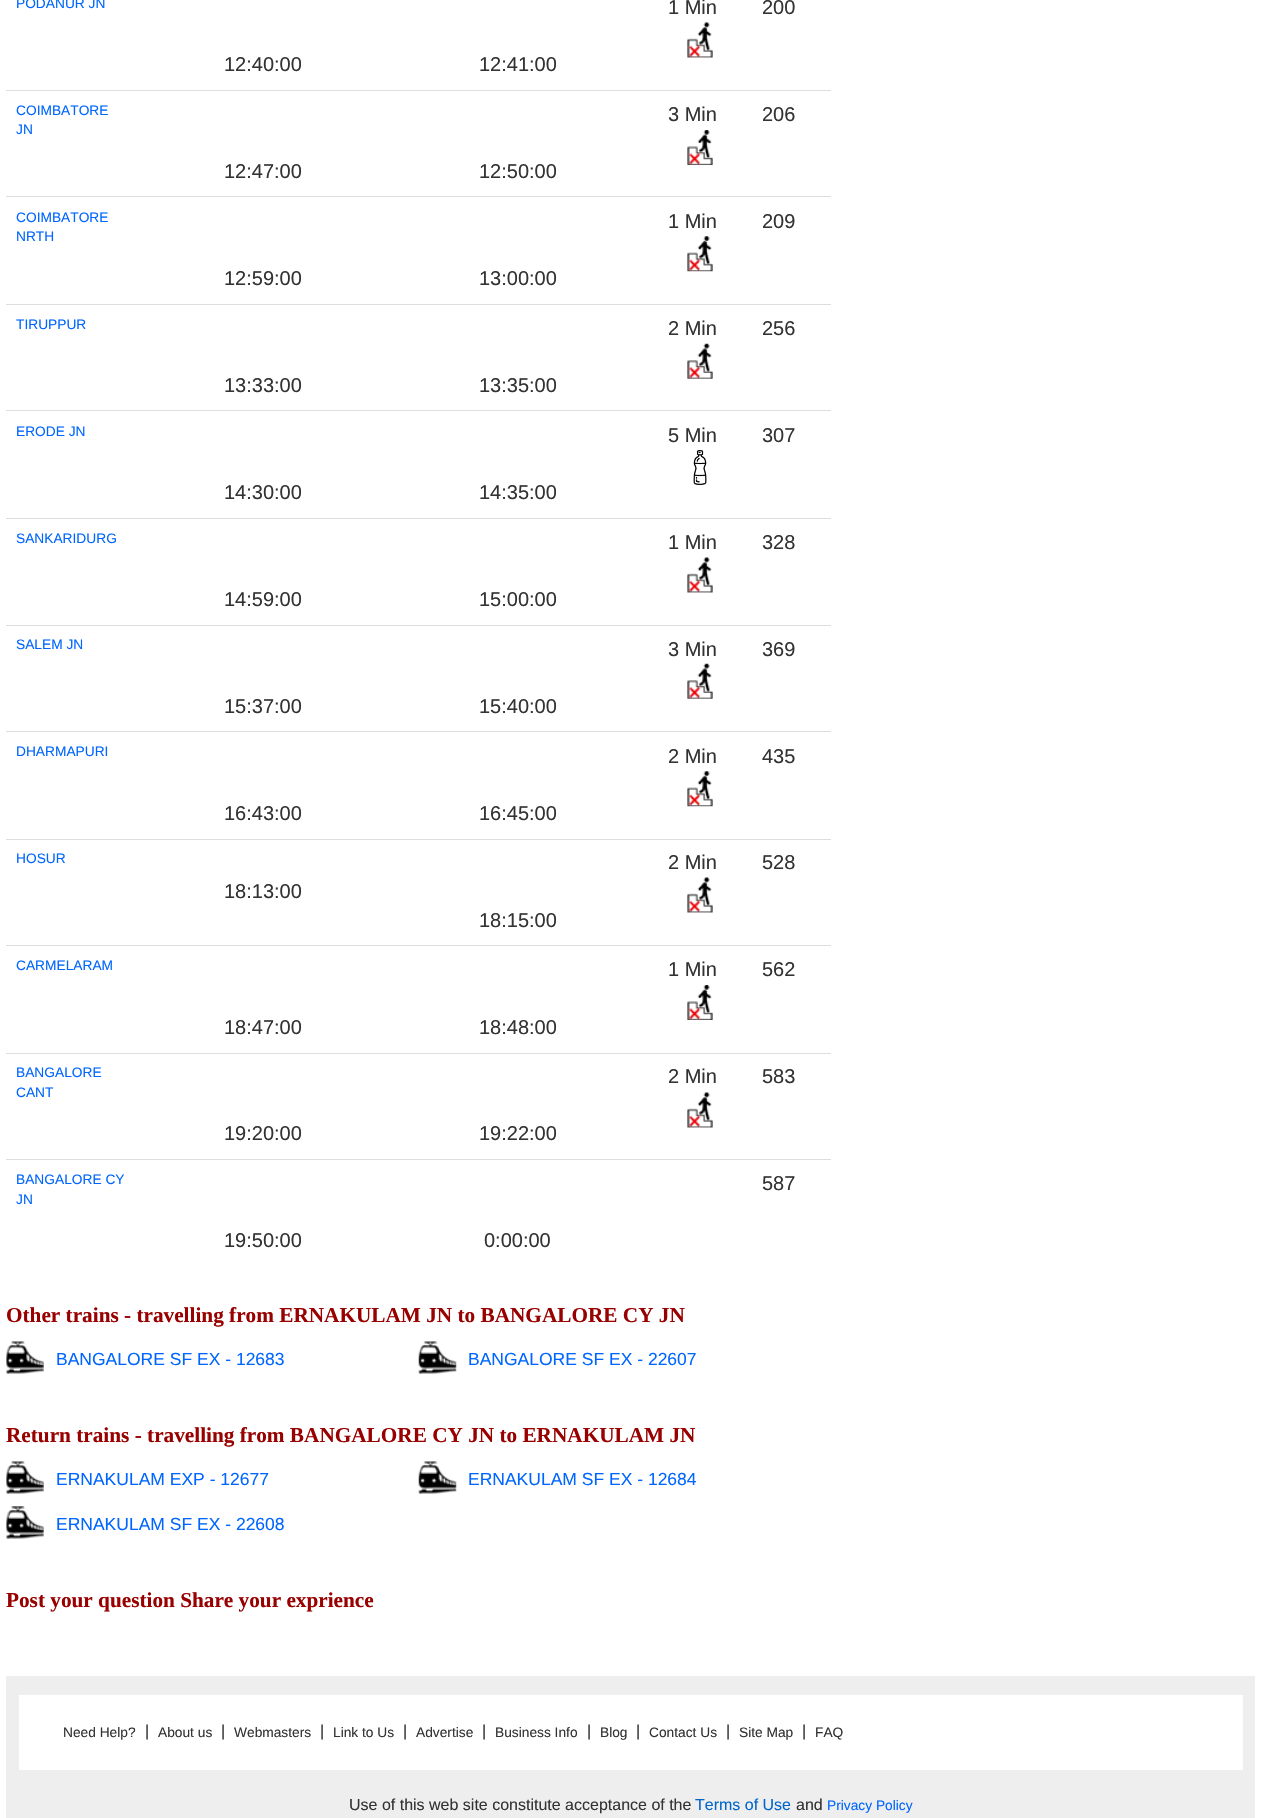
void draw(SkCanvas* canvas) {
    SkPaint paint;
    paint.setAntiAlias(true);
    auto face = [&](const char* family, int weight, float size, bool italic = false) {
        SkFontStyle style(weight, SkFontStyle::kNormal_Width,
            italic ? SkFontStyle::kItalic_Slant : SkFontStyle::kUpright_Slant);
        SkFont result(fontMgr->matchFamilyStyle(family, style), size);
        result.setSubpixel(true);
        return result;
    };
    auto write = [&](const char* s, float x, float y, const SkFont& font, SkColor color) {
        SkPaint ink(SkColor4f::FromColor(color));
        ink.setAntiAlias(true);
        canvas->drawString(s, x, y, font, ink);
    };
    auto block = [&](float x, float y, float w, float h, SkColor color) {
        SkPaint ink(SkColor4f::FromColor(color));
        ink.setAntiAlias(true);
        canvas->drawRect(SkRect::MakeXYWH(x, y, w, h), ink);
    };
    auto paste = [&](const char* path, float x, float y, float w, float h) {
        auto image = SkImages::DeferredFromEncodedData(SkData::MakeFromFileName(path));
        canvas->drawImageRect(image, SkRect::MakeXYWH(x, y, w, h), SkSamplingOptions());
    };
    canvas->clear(SK_ColorWHITE);
    auto kFont1 = face("Liberation Sans", 400, 13.75f);
    write("PODANUR JN", 16, 8, kFont1, SkColorSetRGB(0, 102, 255));
    auto kFont2 = face("Liberation Sans", 400, 20);
    write("1 Min", 668, 14, kFont2, SkColorSetRGB(51, 51, 51));
    paste("pic1.png", 687, 22, 26, 36);
    write("200", 762, 14, kFont2, SkColorSetRGB(51, 51, 51));
    write("12:40:00", 224, 71, kFont2, SkColorSetRGB(51, 51, 51));
    write("12:41:00", 479, 71, kFont2, SkColorSetRGB(51, 51, 51));
    write("COIMBATORE", 16, 115, kFont1, SkColorSetRGB(0, 102, 255));
    write("JN", 16, 134, kFont1, SkColorSetRGB(0, 102, 255));
    write("3 Min", 668, 121, kFont2, SkColorSetRGB(51, 51, 51));
    paste("pic2.png", 687, 130, 26, 35);
    block(6, 90, 825, 1, SkColorSetRGB(221, 221, 221));
    write("206", 762, 121, kFont2, SkColorSetRGB(51, 51, 51));
    write("12:47:00", 224, 178, kFont2, SkColorSetRGB(51, 51, 51));
    write("12:50:00", 479, 178, kFont2, SkColorSetRGB(51, 51, 51));
    write("COIMBATORE", 16, 222, kFont1, SkColorSetRGB(0, 102, 255));
    write("NRTH", 16, 241, kFont1, SkColorSetRGB(0, 102, 255));
    write("1 Min", 668, 228, kFont2, SkColorSetRGB(51, 51, 51));
    paste("pic3.png", 687, 236, 26, 36);
    block(6, 196, 825, 1, SkColorSetRGB(221, 221, 221));
    write("209", 762, 228, kFont2, SkColorSetRGB(51, 51, 51));
    write("12:59:00", 224, 285, kFont2, SkColorSetRGB(51, 51, 51));
    write("13:00:00", 479, 285, kFont2, SkColorSetRGB(51, 51, 51));
    write("TIRUPPUR", 16, 329, kFont1, SkColorSetRGB(0, 102, 255));
    write("2 Min", 668, 335, kFont2, SkColorSetRGB(51, 51, 51));
    paste("pic4.png", 687, 343, 26, 36);
    block(6, 304, 825, 1, SkColorSetRGB(221, 221, 221));
    write("256", 762, 335, kFont2, SkColorSetRGB(51, 51, 51));
    write("13:33:00", 224, 392, kFont2, SkColorSetRGB(51, 51, 51));
    write("13:35:00", 479, 392, kFont2, SkColorSetRGB(51, 51, 51));
    write("ERODE JN", 16, 436, kFont1, SkColorSetRGB(0, 102, 255));
    write("5 Min", 668, 442, kFont2, SkColorSetRGB(51, 51, 51));
    paste("pic5.png", 693, 450, 14, 35);
    block(6, 410, 825, 1, SkColorSetRGB(221, 221, 221));
    write("307", 762, 442, kFont2, SkColorSetRGB(51, 51, 51));
    write("14:30:00", 224, 499, kFont2, SkColorSetRGB(51, 51, 51));
    write("14:35:00", 479, 499, kFont2, SkColorSetRGB(51, 51, 51));
    write("SANKARIDURG", 16, 543, kFont1, SkColorSetRGB(0, 102, 255));
    write("1 Min", 668, 549, kFont2, SkColorSetRGB(51, 51, 51));
    paste("pic1.png", 687, 557, 26, 36);
    block(6, 518, 825, 1, SkColorSetRGB(221, 221, 221));
    write("328", 762, 549, kFont2, SkColorSetRGB(51, 51, 51));
    write("14:59:00", 224, 606, kFont2, SkColorSetRGB(51, 51, 51));
    write("15:00:00", 479, 606, kFont2, SkColorSetRGB(51, 51, 51));
    write("SALEM JN", 16, 649, kFont1, SkColorSetRGB(0, 102, 255));
    write("3 Min", 668, 656, kFont2, SkColorSetRGB(51, 51, 51));
    paste("pic4.png", 687, 663, 26, 36);
    block(6, 625, 825, 1, SkColorSetRGB(221, 221, 221));
    write("369", 762, 656, kFont2, SkColorSetRGB(51, 51, 51));
    write("15:37:00", 224, 713, kFont2, SkColorSetRGB(51, 51, 51));
    write("15:40:00", 479, 713, kFont2, SkColorSetRGB(51, 51, 51));
    write("DHARMAPURI", 16, 756, kFont1, SkColorSetRGB(0, 102, 255));
    write("2 Min", 668, 763, kFont2, SkColorSetRGB(51, 51, 51));
    paste("pic6.png", 687, 771, 26, 36);
    block(6, 731, 825, 1, SkColorSetRGB(221, 221, 221));
    write("435", 762, 763, kFont2, SkColorSetRGB(51, 51, 51));
    write("16:43:00", 224, 820, kFont2, SkColorSetRGB(51, 51, 51));
    write("16:45:00", 479, 820, kFont2, SkColorSetRGB(51, 51, 51));
    write("HOSUR", 16, 863, kFont1, SkColorSetRGB(0, 102, 255));
    write("2 Min", 668, 869, kFont2, SkColorSetRGB(51, 51, 51));
    paste("pic1.png", 687, 877, 26, 36);
    block(6, 839, 825, 1, SkColorSetRGB(221, 221, 221));
    write("528", 762, 869, kFont2, SkColorSetRGB(51, 51, 51));
    write("18:13:00", 224, 898, kFont2, SkColorSetRGB(51, 51, 51));
    write("18:15:00", 479, 927, kFont2, SkColorSetRGB(51, 51, 51));
    write("CARMELARAM", 16, 970, kFont1, SkColorSetRGB(0, 102, 255));
    write("1 Min", 668, 976, kFont2, SkColorSetRGB(51, 51, 51));
    paste("pic7.png", 687, 985, 26, 35);
    block(6, 945, 825, 1, SkColorSetRGB(221, 221, 221));
    write("562", 762, 976, kFont2, SkColorSetRGB(51, 51, 51));
    write("18:47:00", 224, 1034, kFont2, SkColorSetRGB(51, 51, 51));
    write("18:48:00", 479, 1034, kFont2, SkColorSetRGB(51, 51, 51));
    write("BANGALORE", 16, 1077, kFont1, SkColorSetRGB(0, 102, 255));
    write("CANT", 16, 1097, kFont1, SkColorSetRGB(0, 102, 255));
    write("2 Min", 668, 1083, kFont2, SkColorSetRGB(51, 51, 51));
    paste("pic1.png", 687, 1092, 26, 36);
    block(6, 1053, 825, 1, SkColorSetRGB(221, 221, 221));
    write("583", 762, 1083, kFont2, SkColorSetRGB(51, 51, 51));
    write("19:20:00", 224, 1140, kFont2, SkColorSetRGB(51, 51, 51));
    write("19:22:00", 479, 1140, kFont2, SkColorSetRGB(51, 51, 51));
    write("BANGALORE CY", 16, 1184, kFont1, SkColorSetRGB(0, 102, 255));
    write("JN", 16, 1204, kFont1, SkColorSetRGB(0, 102, 255));
    block(6, 1159, 825, 1, SkColorSetRGB(221, 221, 221));
    write("587", 762, 1190, kFont2, SkColorSetRGB(51, 51, 51));
    write("19:50:00", 224, 1247, kFont2, SkColorSetRGB(51, 51, 51));
    write("0:00:00", 484, 1247, kFont2, SkColorSetRGB(51, 51, 51));
    auto kFont3 = face("Liberation Serif", 700, 21.25f);
    write("Other trains - travelling from ERNAKULAM JN to BANGALORE CY JN", 6, 1322, kFont3, SkColorSetRGB(153, 0, 0));
    paste("pic8.png", 6, 1341, 38, 33);
    auto kFont4 = face("Liberation Sans", 400, 17.5f);
    write("BANGALORE SF EX - 12683", 56, 1365, kFont4, SkColorSetRGB(0, 102, 255));
    paste("pic9.png", 418, 1341, 39, 33);
    write("BANGALORE SF EX - 22607", 468, 1365, kFont4, SkColorSetRGB(0, 102, 255));
    write("Return trains - travelling from BANGALORE CY JN to ERNAKULAM JN", 6, 1442, kFont3, SkColorSetRGB(153, 0, 0));
    paste("pic8.png", 6, 1461, 38, 33);
    write("ERNAKULAM EXP - 12677", 56, 1485, kFont4, SkColorSetRGB(0, 102, 255));
    paste("pic9.png", 418, 1461, 39, 33);
    write("ERNAKULAM SF EX - 12684", 468, 1485, kFont4, SkColorSetRGB(0, 102, 255));
    paste("pic10.png", 6, 1506, 38, 33);
    write("ERNAKULAM SF EX - 22608", 56, 1530, kFont4, SkColorSetRGB(0, 102, 255));
    write("Post your question Share your exprience", 6, 1607, kFont3, SkColorSetRGB(153, 0, 0));
    block(6, 1676, 1249, 142, SkColorSetRGB(238, 238, 238));
    block(19, 1695, 1224, 75, SK_ColorWHITE);
    write("Need Help?", 63, 1737, kFont1, SkColorSetRGB(51, 51, 51));
    auto kFont5 = face("Liberation Sans", 400, 16);
    write("|", 145, 1736, kFont5, SkColorSetRGB(51, 51, 51));
    write("About us", 158, 1737, kFont1, SkColorSetRGB(51, 51, 51));
    write("|", 221, 1736, kFont5, SkColorSetRGB(51, 51, 51));
    write("Webmasters", 234, 1737, kFont1, SkColorSetRGB(51, 51, 51));
    write("|", 320, 1736, kFont5, SkColorSetRGB(51, 51, 51));
    write("Link to Us", 333, 1737, kFont1, SkColorSetRGB(51, 51, 51));
    write("|", 403, 1736, kFont5, SkColorSetRGB(51, 51, 51));
    write("Advertise", 416, 1737, kFont1, SkColorSetRGB(51, 51, 51));
    write("|", 482, 1736, kFont5, SkColorSetRGB(51, 51, 51));
    write("Business Info", 495, 1737, kFont1, SkColorSetRGB(51, 51, 51));
    write("|", 587, 1736, kFont5, SkColorSetRGB(51, 51, 51));
    write("Blog", 600, 1737, kFont1, SkColorSetRGB(51, 51, 51));
    write("|", 636, 1736, kFont5, SkColorSetRGB(51, 51, 51));
    write("Contact Us", 649, 1737, kFont1, SkColorSetRGB(51, 51, 51));
    write("|", 726, 1736, kFont5, SkColorSetRGB(51, 51, 51));
    write("Site Map", 739, 1737, kFont1, SkColorSetRGB(51, 51, 51));
    write("|", 802, 1736, kFont5, SkColorSetRGB(51, 51, 51));
    write("FAQ", 815, 1737, kFont1, SkColorSetRGB(51, 51, 51));
    write("Use of this web site constitute acceptance of the", 349, 1810, kFont5, SkColorSetRGB(51, 51, 51));
    write("Terms of Use", 695, 1810, kFont5, SkColorSetRGB(0, 102, 204));
    write("and", 796, 1810, kFont5, SkColorSetRGB(51, 51, 51));
    write("Privacy Policy", 827, 1810, kFont1, SkColorSetRGB(0, 102, 255));
}
